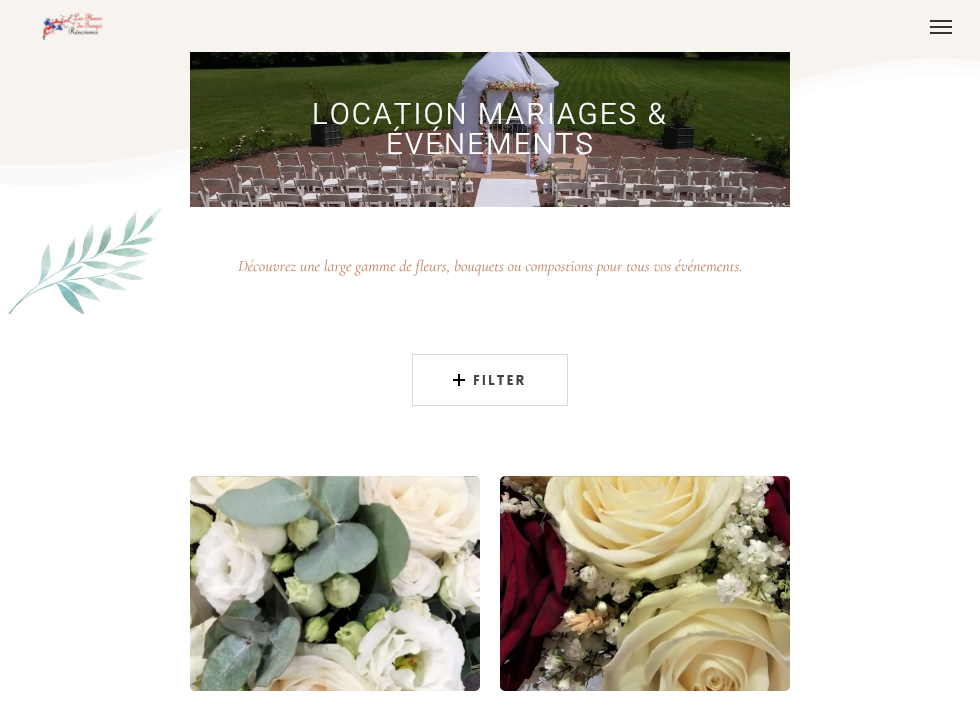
void draw(SkCanvas* canvas) {
    SkPaint paint;
    paint.setAntiAlias(true);
    auto face = [&](const char* family, int weight, float size, bool italic = false) {
        SkFontStyle style(weight, SkFontStyle::kNormal_Width,
            italic ? SkFontStyle::kItalic_Slant : SkFontStyle::kUpright_Slant);
        SkFont result(fontMgr->matchFamilyStyle(family, style), size);
        result.setSubpixel(true);
        return result;
    };
    auto write = [&](const char* s, float x, float y, const SkFont& font, SkColor color) {
        SkPaint ink(SkColor4f::FromColor(color));
        ink.setAntiAlias(true);
        canvas->drawString(s, x, y, font, ink);
    };
    auto writeSpaced = [&](const char* s, float x, float y, const SkFont& font, const SkPaint& ink, float letter, float word) {
        std::vector<SkGlyphID> glyphs(font.countText(s, strlen(s), SkTextEncoding::kUTF8));
        std::vector<float> xs(glyphs.size());
        font.textToGlyphs(s, strlen(s), SkTextEncoding::kUTF8, glyphs);
        font.getXPos(glyphs, xs, x);
        float extra = 0;
        for (size_t i = 0; i < glyphs.size(); i++) {
            xs[i] += extra;
            extra += letter + word * (glyphs[i] == font.unicharToGlyph(' '));
        }
        canvas->drawTextBlob(SkTextBlob::MakeFromPosHGlyphs(glyphs, xs, y, font), 0, 0, ink);
    };
    auto block = [&](float x, float y, float w, float h, SkColor color) {
        SkPaint ink(SkColor4f::FromColor(color));
        ink.setAntiAlias(true);
        canvas->drawRect(SkRect::MakeXYWH(x, y, w, h), ink);
    };
    auto paste = [&](const char* path, float x, float y, float w, float h) {
        auto image = SkImages::DeferredFromEncodedData(SkData::MakeFromFileName(path));
        canvas->drawImageRect(image, SkRect::MakeXYWH(x, y, w, h), SkSamplingOptions());
    };
    canvas->clear(SK_ColorWHITE);
    block(0, 0, 980, 52, SkColorSetRGB(247, 243, 239));
    paste("pic1.png", 42, 12, 61, 28);
    block(930, 20, 22, 2, SkColorSetRGB(51, 51, 51));
    block(930, 32, 22, 2, SkColorSetRGB(51, 51, 51));
    block(930, 26, 22, 2, SkColorSetRGB(51, 51, 51));
    paste("pic2.png", 0, 52, 980, 134);
    paste("pic3.png", 190, 52, 600, 155);
    auto kFont1 = face("Heebo", 300, 29.6f);
    paint.setColor(SK_ColorWHITE);
    writeSpaced("LOCATION MARIAGES &", 312, 124, kFont1, paint, 2, 0);
    writeSpaced("ÉVÉNEMENTS", 386, 154, kFont1, paint, 2, 0);
    paste("pic4.png", 8, 207, 154, 107);
    auto kFont2 = face("Cormorant Garamond", 300, 16, true);
    write("Découvrez une large gamme de fleurs, bouquets ou compostions pour tous vos événements.", 238, 271, kFont2, SkColorSetRGB(199, 133, 100));
    paint.setStyle(SkPaint::kStroke_Style);
    paint.setStrokeWidth(1);
    paint.setColor(SkColorSetRGB(217, 217, 217));
    canvas->drawRect(SkRect::MakeXYWH(412.5f, 354.5f, 155, 51), paint);
    block(458, 374, 2, 12, SK_ColorBLACK);
    auto kFont3 = face("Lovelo", 900, 14);
    paint.setStyle(SkPaint::kFill_Style);
    paint.setColor(SkColorSetRGB(68, 68, 68));
    writeSpaced("FILTER", 473, 385, kFont3, paint, 2, 0);
    block(453, 379, 12, 2, SK_ColorBLACK);
    paste("pic5.png", 190, 476, 290, 215);
    paste("pic6.png", 500, 476, 290, 215);
}
